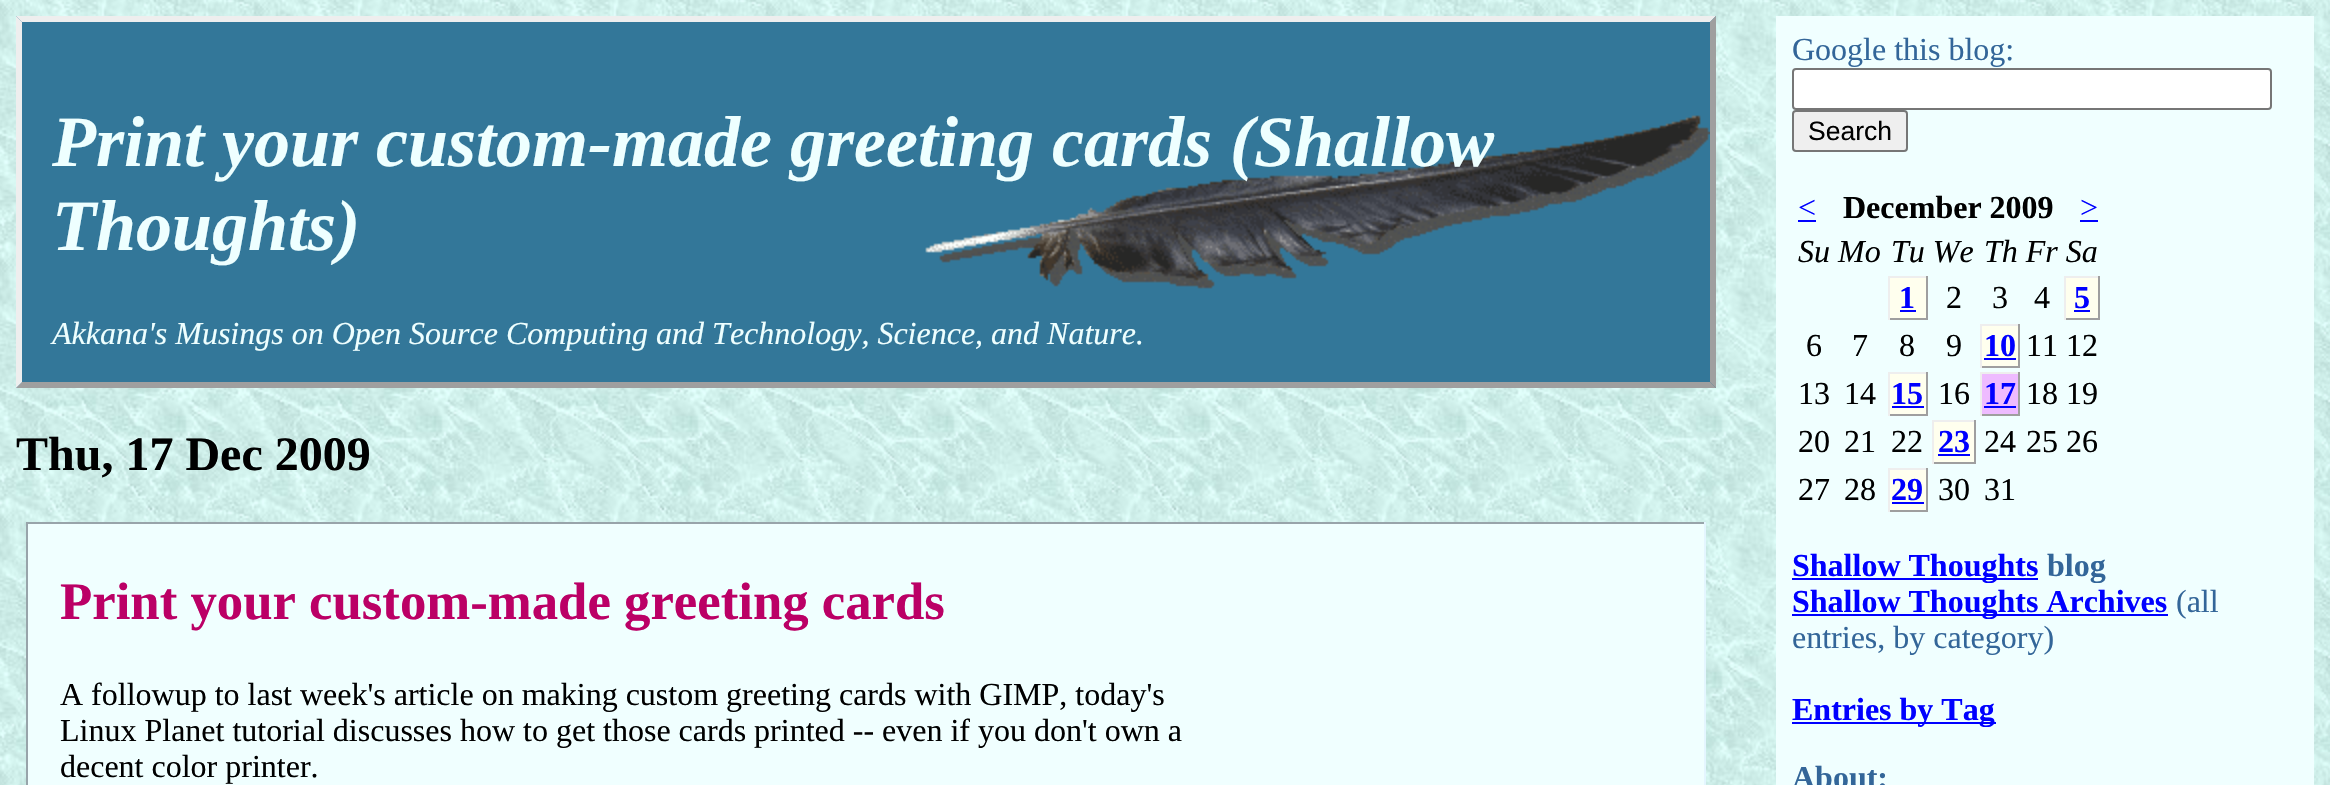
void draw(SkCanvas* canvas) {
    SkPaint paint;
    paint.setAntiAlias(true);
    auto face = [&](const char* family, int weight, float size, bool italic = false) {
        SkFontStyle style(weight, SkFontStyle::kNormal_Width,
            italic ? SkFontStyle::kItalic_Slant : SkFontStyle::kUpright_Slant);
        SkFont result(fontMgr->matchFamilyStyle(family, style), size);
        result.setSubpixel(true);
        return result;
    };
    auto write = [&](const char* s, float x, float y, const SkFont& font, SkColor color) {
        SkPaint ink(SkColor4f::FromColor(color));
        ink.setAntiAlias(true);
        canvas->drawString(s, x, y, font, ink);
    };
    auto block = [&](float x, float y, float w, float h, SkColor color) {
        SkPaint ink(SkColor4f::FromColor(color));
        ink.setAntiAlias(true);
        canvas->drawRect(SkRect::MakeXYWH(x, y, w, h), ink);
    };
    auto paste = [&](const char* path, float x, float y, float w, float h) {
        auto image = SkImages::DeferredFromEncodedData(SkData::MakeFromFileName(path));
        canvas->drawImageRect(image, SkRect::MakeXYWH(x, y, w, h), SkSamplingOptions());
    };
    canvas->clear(SK_ColorWHITE);
    paste("pic1.png", 0, 0, 2330, 785);
    block(16, 16, 1700, 372, SkColorSetRGB(51, 119, 153));
    paste("pic2.png", 925, 115, 785, 174);
    paint.setColor(SkColorSetRGB(238, 238, 238));
    canvas->drawPath(SkPathBuilder().moveTo(16, 16).lineTo(1716, 16).lineTo(1710, 22).lineTo(22, 22).close().detach(), paint);
    paint.setColor(SkColorSetRGB(159, 159, 159));
    canvas->drawPath(SkPathBuilder().moveTo(1716, 16).lineTo(1716, 388).lineTo(1710, 382).lineTo(1710, 22).close().detach(), paint);
    canvas->drawPath(SkPathBuilder().moveTo(1716, 388).lineTo(16, 388).lineTo(22, 382).lineTo(1710, 382).close().detach(), paint);
    paint.setColor(SkColorSetRGB(238, 238, 238));
    canvas->drawPath(SkPathBuilder().moveTo(16, 388).lineTo(16, 16).lineTo(22, 22).lineTo(22, 382).close().detach(), paint);
    auto kFont1 = face("Liberation Serif", 700, 72, true);
    write("Print your custom-made greeting cards (Shallow", 52, 166, kFont1, SkColorSetRGB(238, 255, 255));
    write("Thoughts)", 52, 250, kFont1, SkColorSetRGB(238, 255, 255));
    auto kFont2 = face("Liberation Serif", 400, 32, true);
    write("Akkana's Musings on Open Source Computing and Technology, Science, and Nature.", 52, 344, kFont2, SkColorSetRGB(238, 255, 255));
    auto kFont3 = face("Liberation Serif", 700, 48);
    write("Thu, 17 Dec 2009", 16, 470, kFont3, SK_ColorBLACK);
    block(28, 524, 1676, 261, SkColorSetRGB(240, 255, 255));
    block(26, 522, 1680, 2, SkColorSetRGB(152, 164, 170));
    block(1704, 522, 2, 263, SkColorSetRGB(228, 246, 255));
    block(26, 522, 2, 263, SkColorSetRGB(152, 164, 170));
    auto kFont4 = face("Liberation Serif", 700, 52.75f);
    write("Print your custom-made greeting cards", 60, 619, kFont4, SkColorSetRGB(187, 0, 102));
    auto kFont5 = face("Liberation Serif", 400, 32);
    write("A followup to last week's article on making custom greeting cards with GIMP, today's", 60, 705, kFont5, SK_ColorBLACK);
    write("Linux Planet tutorial discusses how to get those cards printed -- even if you don't own a", 60, 741, kFont5, SK_ColorBLACK);
    write("decent color printer.", 60, 777, kFont5, SK_ColorBLACK);
    block(1776, 16, 538, 769, SkColorSetRGB(240, 255, 255));
    write("Google this blog:", 1792, 60, kFont5, SkColorSetRGB(51, 102, 153));
    paint.setColor(SK_ColorWHITE);
    canvas->drawRoundRect(SkRect::MakeXYWH(1793, 69, 478, 40), 3, 3, paint);
    paint.setStyle(SkPaint::kStroke_Style);
    paint.setStrokeWidth(2);
    paint.setColor(SkColorSetRGB(118, 118, 118));
    canvas->drawRoundRect(SkRect::MakeXYWH(1793, 69, 478, 40), 3, 3, paint);
    paint.setStyle(SkPaint::kFill_Style);
    paint.setColor(SkColorSetRGB(239, 239, 239));
    canvas->drawRoundRect(SkRect::MakeXYWH(1793, 111, 114, 40), 3, 3, paint);
    paint.setStyle(SkPaint::kStroke_Style);
    paint.setColor(SkColorSetRGB(118, 118, 118));
    canvas->drawRoundRect(SkRect::MakeXYWH(1793, 111, 114, 40), 3, 3, paint);
    auto kFont6 = face("Liberation Sans", 400, 26.5f);
    write("Search", 1808, 140, kFont6, SK_ColorBLACK);
    write("<", 1798, 218, kFont5, SkColorSetRGB(0, 0, 255));
    block(1798, 220, 18, 2, SkColorSetRGB(0, 0, 255));
    auto kFont7 = face("Liberation Serif", 700, 32);
    write("December 2009", 1843, 218, kFont7, SK_ColorBLACK);
    write(">", 2080, 218, kFont5, SkColorSetRGB(0, 0, 255));
    block(2080, 220, 18, 2, SkColorSetRGB(0, 0, 255));
    write("Su Mo", 1798, 262, kFont2, SK_ColorBLACK);
    write("Tu We", 1891, 262, kFont2, SK_ColorBLACK);
    write("Th Fr Sa", 1984, 262, kFont2, SK_ColorBLACK);
    block(1890, 278, 36, 40, SkColorSetRGB(255, 255, 238));
    block(1888, 276, 40, 2, SkColorSetRGB(238, 238, 238));
    block(1926, 276, 2, 44, SkColorSetRGB(159, 159, 159));
    block(1888, 318, 40, 2, SkColorSetRGB(159, 159, 159));
    block(1888, 276, 2, 44, SkColorSetRGB(238, 238, 238));
    write("1", 1899, 308, kFont7, SkColorSetRGB(0, 0, 255));
    block(1900, 310, 16, 2, SkColorSetRGB(0, 0, 255));
    write("2", 1946, 308, kFont5, SK_ColorBLACK);
    write("3", 1992, 308, kFont5, SK_ColorBLACK);
    write("4", 2034, 308, kFont5, SK_ColorBLACK);
    block(2066, 278, 32, 40, SkColorSetRGB(255, 255, 238));
    block(2064, 276, 36, 2, SkColorSetRGB(238, 238, 238));
    block(2098, 276, 2, 44, SkColorSetRGB(159, 159, 159));
    block(2064, 318, 36, 2, SkColorSetRGB(159, 159, 159));
    block(2064, 276, 2, 44, SkColorSetRGB(238, 238, 238));
    write("5", 2074, 308, kFont7, SkColorSetRGB(0, 0, 255));
    block(2074, 310, 16, 2, SkColorSetRGB(0, 0, 255));
    write("6", 1806, 356, kFont5, SK_ColorBLACK);
    write("7", 1852, 356, kFont5, SK_ColorBLACK);
    write("8", 1899, 356, kFont5, SK_ColorBLACK);
    write("9", 1946, 356, kFont5, SK_ColorBLACK);
    block(1982, 326, 36, 40, SkColorSetRGB(255, 255, 238));
    block(1980, 324, 40, 2, SkColorSetRGB(238, 238, 238));
    block(2018, 324, 2, 44, SkColorSetRGB(159, 159, 159));
    block(1980, 366, 40, 2, SkColorSetRGB(159, 159, 159));
    block(1980, 324, 2, 44, SkColorSetRGB(238, 238, 238));
    write("10", 1984, 356, kFont7, SkColorSetRGB(0, 0, 255));
    block(1984, 358, 32, 2, SkColorSetRGB(0, 0, 255));
    write("11 12", 2026, 356, kFont5, SK_ColorBLACK);
    write("13", 1798, 404, kFont5, SK_ColorBLACK);
    write("14", 1844, 404, kFont5, SK_ColorBLACK);
    block(1890, 374, 36, 40, SkColorSetRGB(255, 255, 238));
    block(1888, 372, 40, 2, SkColorSetRGB(238, 238, 238));
    block(1926, 372, 2, 44, SkColorSetRGB(159, 159, 159));
    block(1888, 414, 40, 2, SkColorSetRGB(159, 159, 159));
    block(1888, 372, 2, 44, SkColorSetRGB(238, 238, 238));
    write("15", 1891, 404, kFont7, SkColorSetRGB(0, 0, 255));
    block(1892, 406, 32, 2, SkColorSetRGB(0, 0, 255));
    write("16", 1938, 404, kFont5, SK_ColorBLACK);
    block(1982, 374, 36, 40, SkColorSetRGB(238, 187, 255));
    block(1980, 372, 40, 2, SkColorSetRGB(238, 238, 238));
    block(2018, 372, 2, 44, SkColorSetRGB(159, 159, 159));
    block(1980, 414, 40, 2, SkColorSetRGB(159, 159, 159));
    block(1980, 372, 2, 44, SkColorSetRGB(238, 238, 238));
    write("17", 1984, 404, kFont7, SkColorSetRGB(0, 0, 255));
    block(1984, 406, 32, 2, SkColorSetRGB(0, 0, 255));
    write("18 19", 2026, 404, kFont5, SK_ColorBLACK);
    write("20", 1798, 452, kFont5, SK_ColorBLACK);
    write("21", 1844, 452, kFont5, SK_ColorBLACK);
    write("22", 1891, 452, kFont5, SK_ColorBLACK);
    block(1934, 422, 40, 40, SkColorSetRGB(255, 255, 238));
    block(1932, 420, 44, 2, SkColorSetRGB(238, 238, 238));
    block(1974, 420, 2, 44, SkColorSetRGB(159, 159, 159));
    block(1932, 462, 44, 2, SkColorSetRGB(159, 159, 159));
    block(1932, 420, 2, 44, SkColorSetRGB(238, 238, 238));
    write("23", 1938, 452, kFont7, SkColorSetRGB(0, 0, 255));
    block(1938, 454, 32, 2, SkColorSetRGB(0, 0, 255));
    write("24", 1984, 452, kFont5, SK_ColorBLACK);
    write("25 26", 2026, 452, kFont5, SK_ColorBLACK);
    write("27", 1798, 500, kFont5, SK_ColorBLACK);
    write("28", 1844, 500, kFont5, SK_ColorBLACK);
    block(1890, 470, 36, 40, SkColorSetRGB(255, 255, 238));
    block(1888, 468, 40, 2, SkColorSetRGB(238, 238, 238));
    block(1926, 468, 2, 44, SkColorSetRGB(159, 159, 159));
    block(1888, 510, 40, 2, SkColorSetRGB(159, 159, 159));
    block(1888, 468, 2, 44, SkColorSetRGB(238, 238, 238));
    write("29", 1891, 500, kFont7, SkColorSetRGB(0, 0, 255));
    block(1892, 502, 32, 2, SkColorSetRGB(0, 0, 255));
    write("30", 1938, 500, kFont5, SK_ColorBLACK);
    write("31", 1984, 500, kFont5, SK_ColorBLACK);
    block(1792, 578, 246, 2, SkColorSetRGB(0, 0, 255));
    write("Shallow Thoughts", 1792, 576, kFont7, SkColorSetRGB(0, 0, 255));
    write("blog", 2047, 576, kFont7, SkColorSetRGB(51, 102, 153));
    block(1792, 614, 376, 2, SkColorSetRGB(0, 0, 255));
    write("Shallow Thoughts Archives", 1792, 612, kFont7, SkColorSetRGB(0, 0, 255));
    write("(all", 2176, 612, kFont5, SkColorSetRGB(51, 102, 153));
    write("entries, by category)", 1792, 648, kFont5, SkColorSetRGB(51, 102, 153));
    block(1792, 722, 204, 2, SkColorSetRGB(0, 0, 255));
    write("Entries by Tag", 1792, 720, kFont7, SkColorSetRGB(0, 0, 255));
    write("About:", 1792, 788, kFont7, SkColorSetRGB(51, 102, 153));
}
